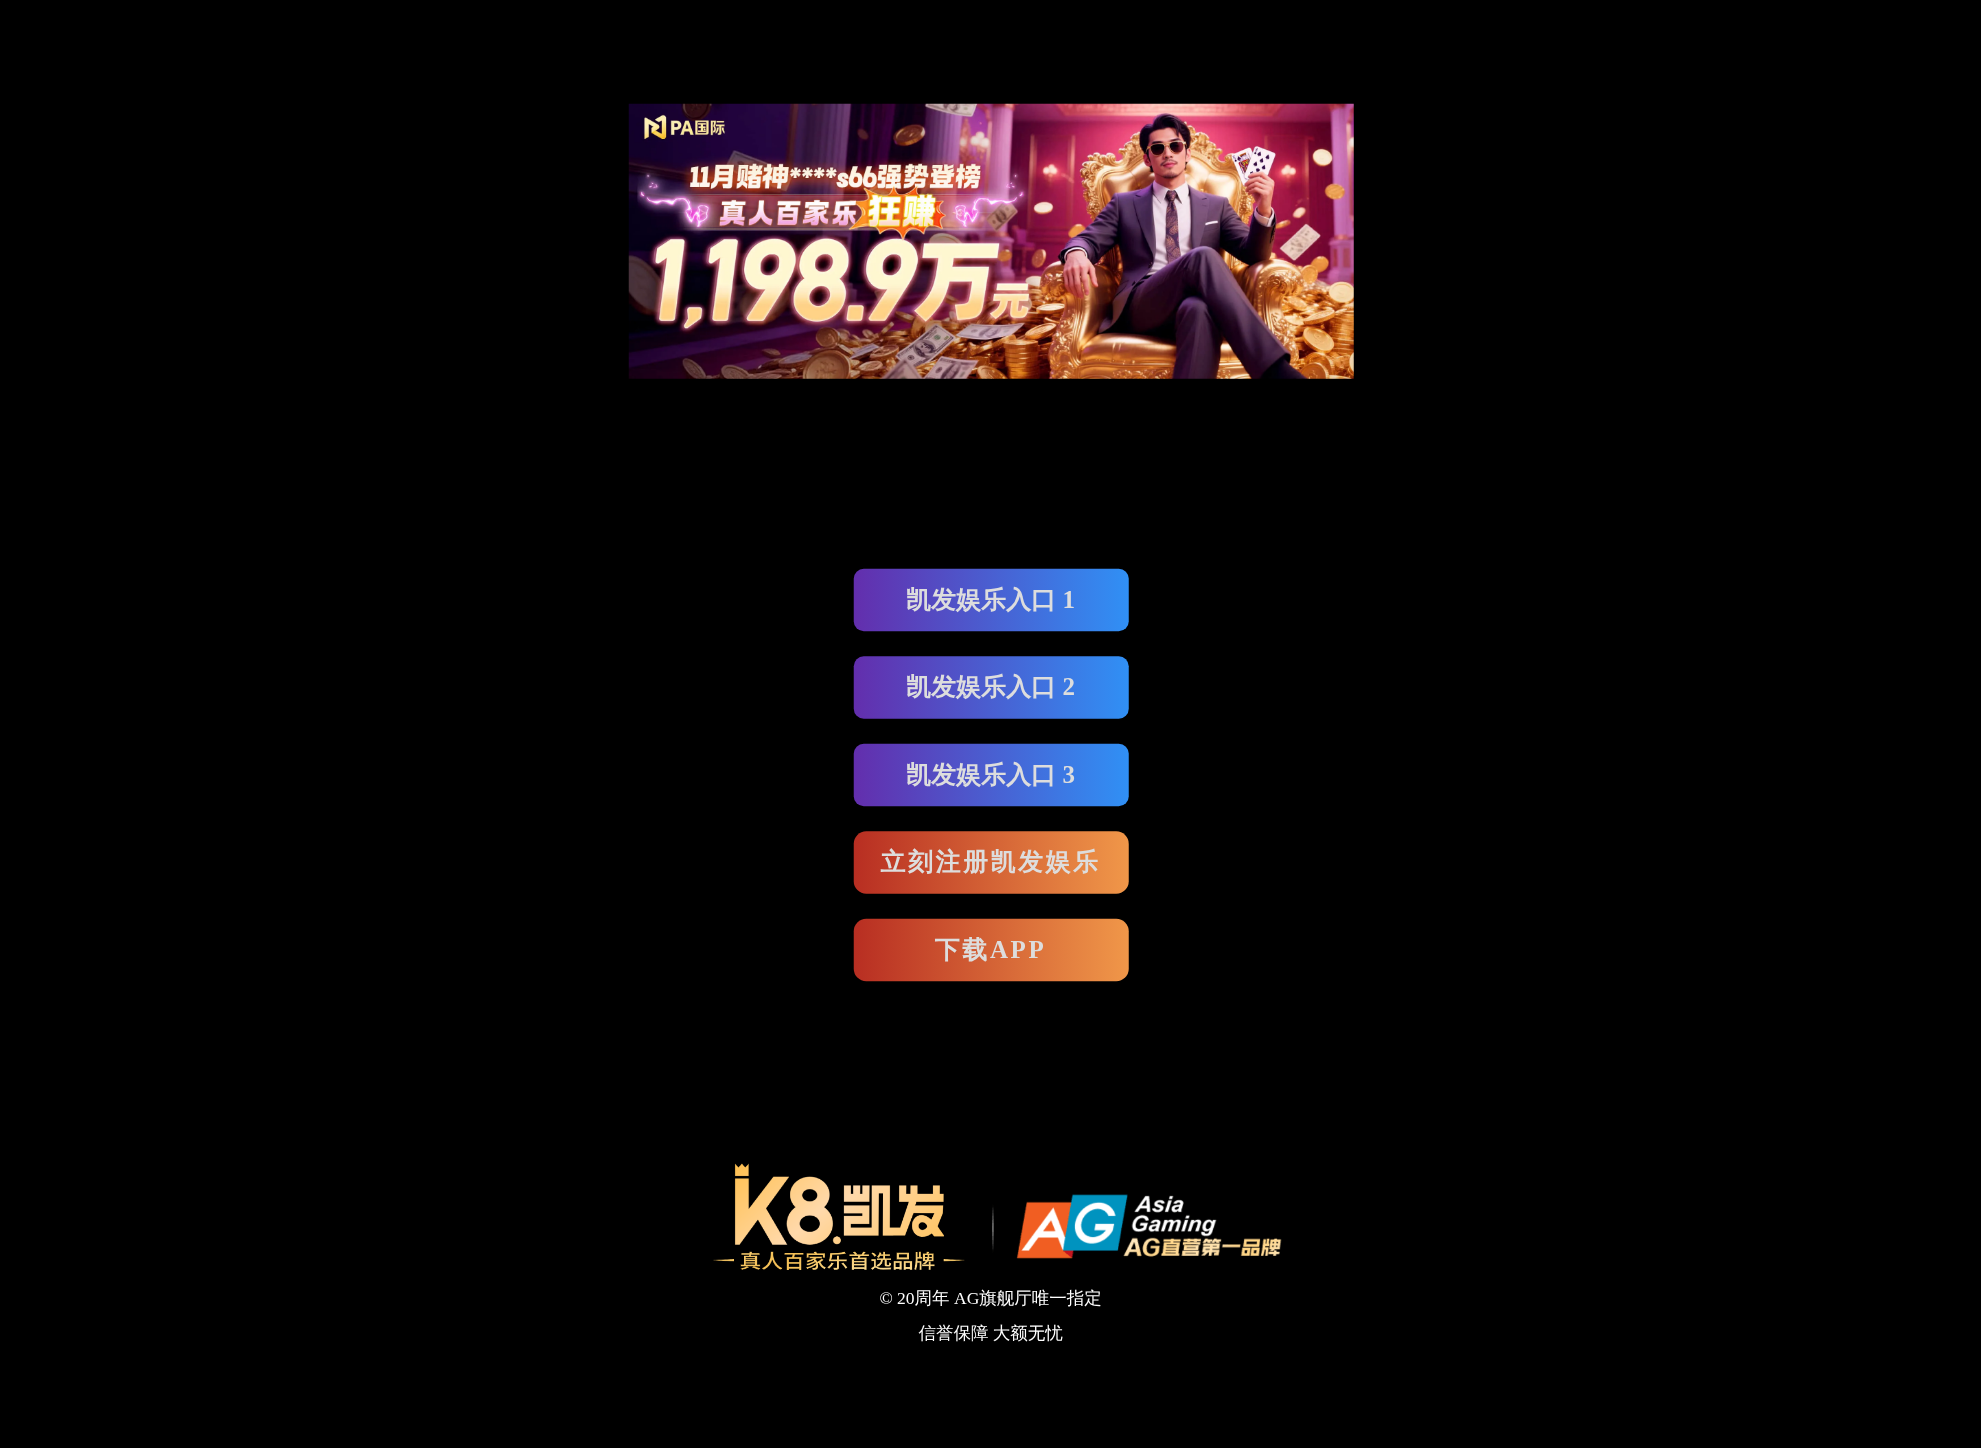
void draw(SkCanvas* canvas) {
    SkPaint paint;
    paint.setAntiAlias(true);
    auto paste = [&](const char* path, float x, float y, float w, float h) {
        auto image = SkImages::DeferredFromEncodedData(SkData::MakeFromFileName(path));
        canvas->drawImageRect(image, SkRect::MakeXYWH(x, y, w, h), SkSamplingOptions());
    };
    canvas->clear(SK_ColorWHITE);
    paste("pic1.png", 0, 0, 1981, 1448);
}
